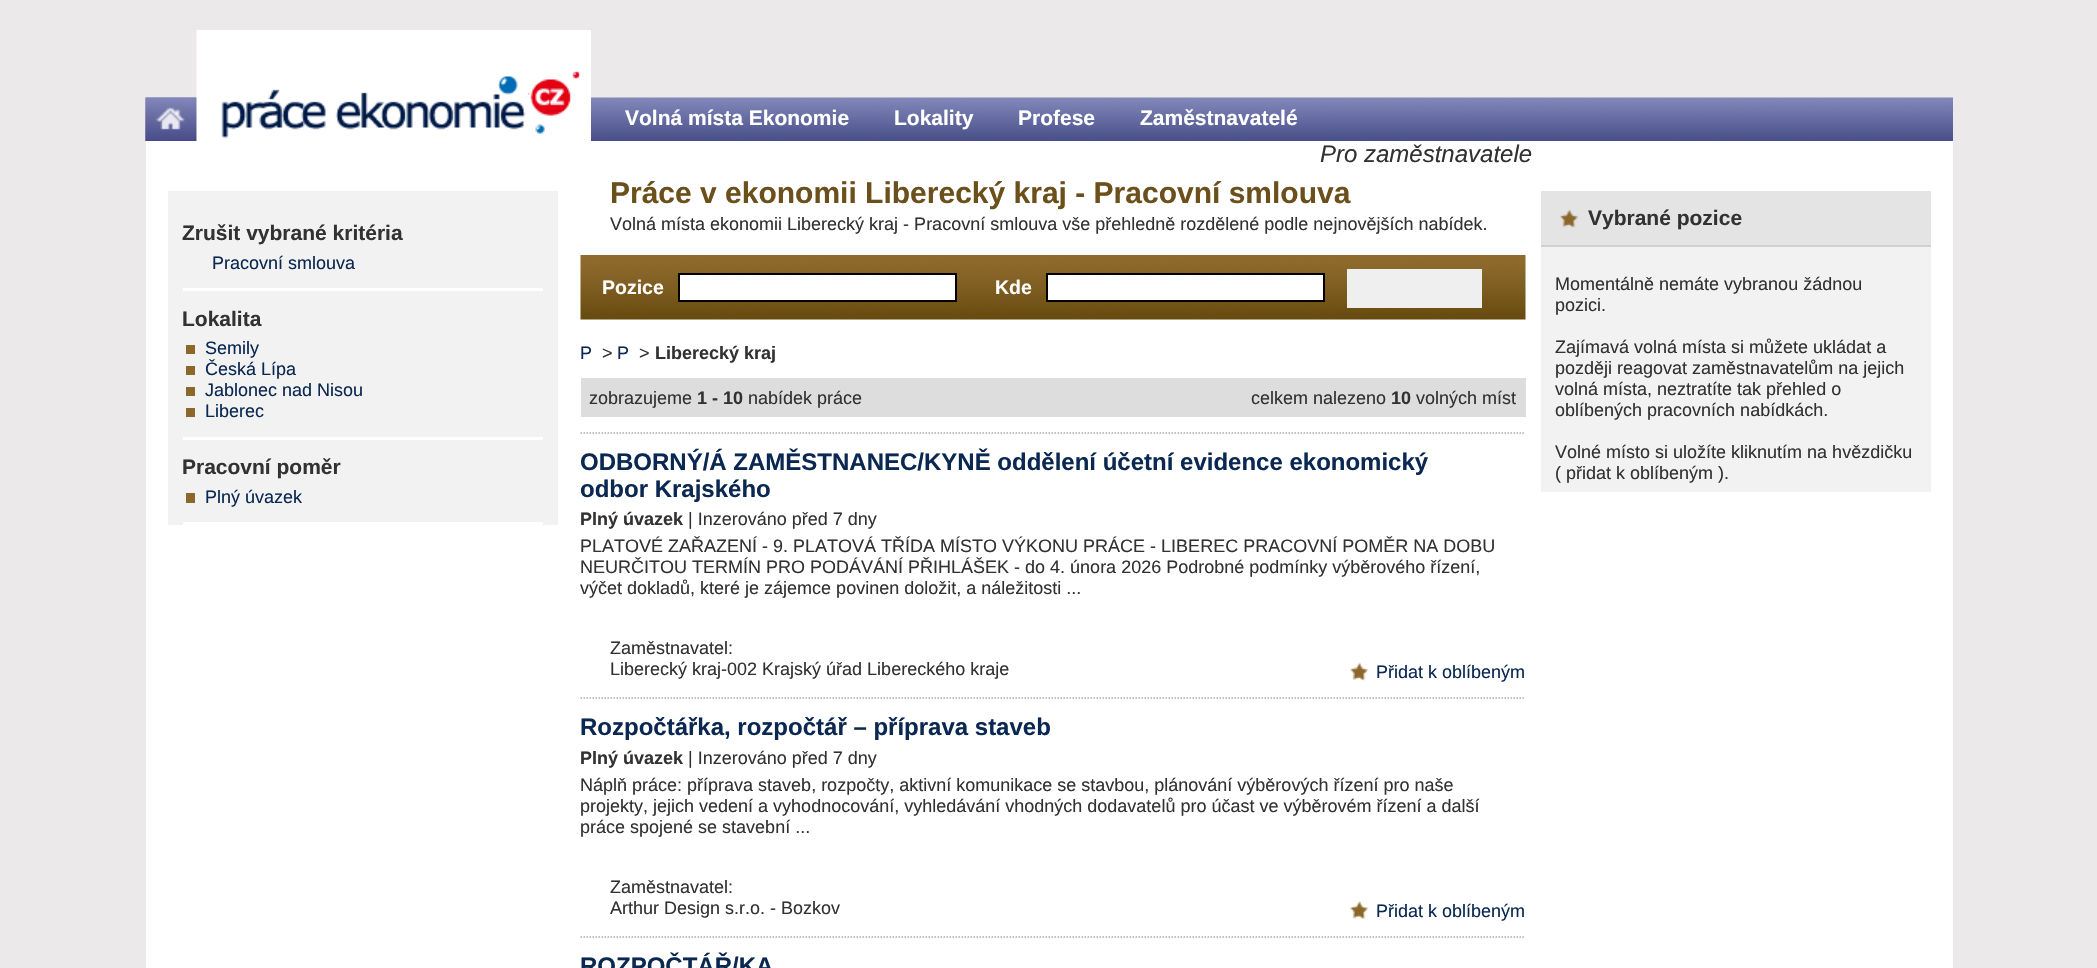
void draw(SkCanvas* canvas) {
    SkPaint paint;
    paint.setAntiAlias(true);
    auto face = [&](const char* family, int weight, float size, bool italic = false) {
        SkFontStyle style(weight, SkFontStyle::kNormal_Width,
            italic ? SkFontStyle::kItalic_Slant : SkFontStyle::kUpright_Slant);
        SkFont result(fontMgr->matchFamilyStyle(family, style), size);
        result.setSubpixel(true);
        return result;
    };
    auto write = [&](const char* s, float x, float y, const SkFont& font, SkColor color) {
        SkPaint ink(SkColor4f::FromColor(color));
        ink.setAntiAlias(true);
        canvas->drawString(s, x, y, font, ink);
    };
    auto block = [&](float x, float y, float w, float h, SkColor color) {
        SkPaint ink(SkColor4f::FromColor(color));
        ink.setAntiAlias(true);
        canvas->drawRect(SkRect::MakeXYWH(x, y, w, h), ink);
    };
    auto paste = [&](const char* path, float x, float y, float w, float h) {
        auto image = SkImages::DeferredFromEncodedData(SkData::MakeFromFileName(path));
        canvas->drawImageRect(image, SkRect::MakeXYWH(x, y, w, h), SkSamplingOptions());
    };
    canvas->clear(SkColorSetRGB(235, 233, 234));
    block(146, 141, 1807, 827, SK_ColorWHITE);
    paste("pic1.png", 145, 97, 1808, 44);
    paste("pic2.png", 145, 97, 52, 44);
    paste("pic3.png", 196, 30, 395, 111);
    auto kFont1 = face("Liberation Sans", 700, 21);
    write("Volná místa Ekonomie", 625, 125, kFont1, SK_ColorWHITE);
    write("Lokality", 894, 125, kFont1, SK_ColorWHITE);
    write("Profese", 1018, 125, kFont1, SK_ColorWHITE);
    write("Zaměstnavatelé", 1140, 125, kFont1, SK_ColorWHITE);
    auto kFont2 = face("Liberation Sans", 400, 24, true);
    write("Pro zaměstnavatele", 1320, 162, kFont2, SkColorSetRGB(50, 50, 50));
    block(168, 191, 390, 334, SkColorSetRGB(242, 242, 242));
    write("Zrušit vybrané kritéria", 182, 240, kFont1, SkColorSetRGB(50, 50, 50));
    auto kFont3 = face("Liberation Sans", 400, 18);
    write("Pracovní smlouva", 212, 269, kFont3, SkColorSetRGB(10, 40, 81));
    block(183, 288, 360, 3, SK_ColorWHITE);
    write("Lokalita", 182, 326, kFont1, SkColorSetRGB(50, 50, 50));
    block(186, 345, 9, 9, SkColorSetRGB(139, 103, 43));
    write("Semily", 205, 354, kFont3, SkColorSetRGB(10, 40, 81));
    block(186, 366, 9, 9, SkColorSetRGB(139, 103, 43));
    write("Česká Lípa", 205, 375, kFont3, SkColorSetRGB(10, 40, 81));
    block(186, 387, 9, 9, SkColorSetRGB(139, 103, 43));
    write("Jablonec nad Nisou", 205, 396, kFont3, SkColorSetRGB(10, 40, 81));
    block(186, 408, 9, 9, SkColorSetRGB(139, 103, 43));
    write("Liberec", 205, 417, kFont3, SkColorSetRGB(10, 40, 81));
    block(183, 437, 360, 3, SK_ColorWHITE);
    write("Pracovní poměr", 182, 474, kFont1, SkColorSetRGB(50, 50, 50));
    block(186, 493, 9, 10, SkColorSetRGB(139, 103, 43));
    write("Plný úvazek", 205, 503, kFont3, SkColorSetRGB(10, 40, 81));
    block(183, 522, 360, 3, SK_ColorWHITE);
    auto kFont4 = face("Liberation Sans", 700, 30);
    write("Práce v ekonomii Liberecký kraj - Pracovní smlouva", 610, 203, kFont4, SkColorSetRGB(108, 80, 27));
    write("Volná místa ekonomii Liberecký kraj - Pracovní smlouva vše přehledně rozdělené podle nejnovějších nabídek.", 610, 230, kFont3, SkColorSetRGB(50, 50, 50));
    paste("pic4.png", 580, 255, 946, 65);
    auto kFont5 = face("Liberation Sans", 700, 19.5f);
    write("Pozice", 602, 294, kFont5, SK_ColorWHITE);
    paint.setColor(SK_ColorWHITE);
    canvas->drawRect(SkRect::MakeXYWH(679, 274, 277, 27), paint);
    paint.setStyle(SkPaint::kStroke_Style);
    paint.setStrokeWidth(2);
    paint.setColor(SK_ColorBLACK);
    canvas->drawRect(SkRect::MakeXYWH(679, 274, 277, 27), paint);
    write("Kde", 995, 294, kFont5, SK_ColorWHITE);
    paint.setStyle(SkPaint::kFill_Style);
    paint.setColor(SK_ColorWHITE);
    canvas->drawRect(SkRect::MakeXYWH(1047, 274, 277, 27), paint);
    paint.setStyle(SkPaint::kStroke_Style);
    paint.setColor(SK_ColorBLACK);
    canvas->drawRect(SkRect::MakeXYWH(1047, 274, 277, 27), paint);
    block(1347, 269, 135, 39, SkColorSetRGB(239, 239, 239));
    write("P", 580, 359, kFont3, SkColorSetRGB(10, 40, 81));
    write(">", 602, 359, kFont3, SkColorSetRGB(50, 50, 50));
    write("P", 617, 359, kFont3, SkColorSetRGB(10, 40, 81));
    write(">", 639, 359, kFont3, SkColorSetRGB(50, 50, 50));
    auto kFont6 = face("Liberation Sans", 700, 18);
    write("Liberecký kraj", 655, 359, kFont6, SkColorSetRGB(50, 50, 50));
    block(581, 378, 945, 39, SkColorSetRGB(221, 221, 221));
    write("zobrazujeme", 589, 404, kFont3, SkColorSetRGB(50, 50, 50));
    write("1 - 10", 697, 404, kFont6, SkColorSetRGB(50, 50, 50));
    write("nabídek práce", 748, 404, kFont3, SkColorSetRGB(50, 50, 50));
    write("celkem nalezeno", 1251, 404, kFont3, SkColorSetRGB(50, 50, 50));
    write("10", 1391, 404, kFont6, SkColorSetRGB(50, 50, 50));
    write("volných míst", 1416, 404, kFont3, SkColorSetRGB(50, 50, 50));
    paint.setStrokeWidth(1.5f);
    paint.setColor(SkColorSetRGB(170, 170, 170));
    paint.setPathEffect(SkDashPathEffect::Make({{1.5f, 1.5f}}, 0));
    canvas->drawPath(SkPathBuilder().moveTo(580.5f, 433).lineTo(1525.5f, 433).detach(), paint);
    paint.setPathEffect(nullptr);
    auto kFont7 = face("Liberation Sans", 700, 24);
    write("ODBORNÝ/Á ZAMĚSTNANEC/KYNĚ oddělení účetní evidence ekonomický", 580, 470, kFont7, SkColorSetRGB(10, 40, 81));
    write("odbor Krajského", 580, 497, kFont7, SkColorSetRGB(10, 40, 81));
    write("Plný úvazek", 580, 525, kFont6, SkColorSetRGB(50, 50, 50));
    write("| Inzerováno před 7 dny", 688, 525, kFont3, SkColorSetRGB(50, 50, 50));
    write("PLATOVÉ ZAŘAZENÍ - 9. PLATOVÁ TŘÍDA MÍSTO VÝKONU PRÁCE - LIBEREC PRACOVNÍ POMĚR NA DOBU", 580, 552, kFont3, SkColorSetRGB(50, 50, 50));
    write("NEURČITOU TERMÍN PRO PODÁVÁNÍ PŘIHLÁŠEK - do 4. února 2026 Podrobné podmínky výběrového řízení,", 580, 573, kFont3, SkColorSetRGB(50, 50, 50));
    write("výčet dokladů, které je zájemce povinen doložit, a náležitosti ...", 580, 594, kFont3, SkColorSetRGB(50, 50, 50));
    write("Zaměstnavatel:", 610, 654, kFont3, SkColorSetRGB(50, 50, 50));
    write("Liberecký kraj-002 Krajský úřad Libereckého kraje", 610, 675, kFont3, SkColorSetRGB(50, 50, 50));
    paste("pic5.png", 1349, 662, 20, 19);
    write("Přidat k oblíbeným", 1376, 678, kFont3, SkColorSetRGB(10, 40, 81));
    paint.setPathEffect(SkDashPathEffect::Make({{1.5f, 1.5f}}, 0));
    canvas->drawPath(SkPathBuilder().moveTo(580.5f, 698).lineTo(1525.5f, 698).detach(), paint);
    paint.setPathEffect(nullptr);
    write("Rozpočtářka, rozpočtář – příprava staveb", 580, 735, kFont7, SkColorSetRGB(10, 40, 81));
    write("Plný úvazek", 580, 764, kFont6, SkColorSetRGB(50, 50, 50));
    write("| Inzerováno před 7 dny", 688, 764, kFont3, SkColorSetRGB(50, 50, 50));
    write("Náplň práce: příprava staveb, rozpočty, aktivní komunikace se stavbou, plánování výběrových řízení pro naše", 580, 791, kFont3, SkColorSetRGB(50, 50, 50));
    write("projekty, jejich vedení a vyhodnocování, vyhledávání vhodných dodavatelů pro účast ve výběrovém řízení a další", 580, 812, kFont3, SkColorSetRGB(50, 50, 50));
    write("práce spojené se stavební ...", 580, 833, kFont3, SkColorSetRGB(50, 50, 50));
    write("Zaměstnavatel:", 610, 893, kFont3, SkColorSetRGB(50, 50, 50));
    write("Arthur Design s.r.o. - Bozkov", 610, 914, kFont3, SkColorSetRGB(50, 50, 50));
    paste("pic6.png", 1349, 901, 20, 19);
    write("Přidat k oblíbeným", 1376, 917, kFont3, SkColorSetRGB(10, 40, 81));
    paint.setPathEffect(SkDashPathEffect::Make({{1.5f, 1.5f}}, 0));
    canvas->drawPath(SkPathBuilder().moveTo(580.5f, 937).lineTo(1525.5f, 937).detach(), paint);
    paint.setPathEffect(nullptr);
    write("ROZPOČTÁŘ/KA", 580, 974, kFont7, SkColorSetRGB(10, 40, 81));
    block(1541, 247, 390, 245, SkColorSetRGB(242, 242, 242));
    block(1541, 191, 390, 54, SkColorSetRGB(228, 228, 228));
    block(1541, 245, 390, 2, SkColorSetRGB(208, 208, 208));
    paste("pic7.png", 1559, 209, 20, 19);
    write("Vybrané pozice", 1588, 225, kFont1, SkColorSetRGB(50, 50, 50));
    write("Momentálně nemáte vybranou žádnou", 1555, 290, kFont3, SkColorSetRGB(50, 50, 50));
    write("pozici.", 1555, 311, kFont3, SkColorSetRGB(50, 50, 50));
    write("Zajímavá volná místa si můžete ukládat a", 1555, 353, kFont3, SkColorSetRGB(50, 50, 50));
    write("později reagovat zaměstnavatelům na jejich", 1555, 374, kFont3, SkColorSetRGB(50, 50, 50));
    write("volná místa, neztratíte tak přehled o", 1555, 395, kFont3, SkColorSetRGB(50, 50, 50));
    write("oblíbených pracovních nabídkách.", 1555, 416, kFont3, SkColorSetRGB(50, 50, 50));
    write("Volné místo si uložíte kliknutím na hvězdičku", 1555, 458, kFont3, SkColorSetRGB(50, 50, 50));
    write("( přidat k oblíbeným ).", 1555, 479, kFont3, SkColorSetRGB(50, 50, 50));
}
